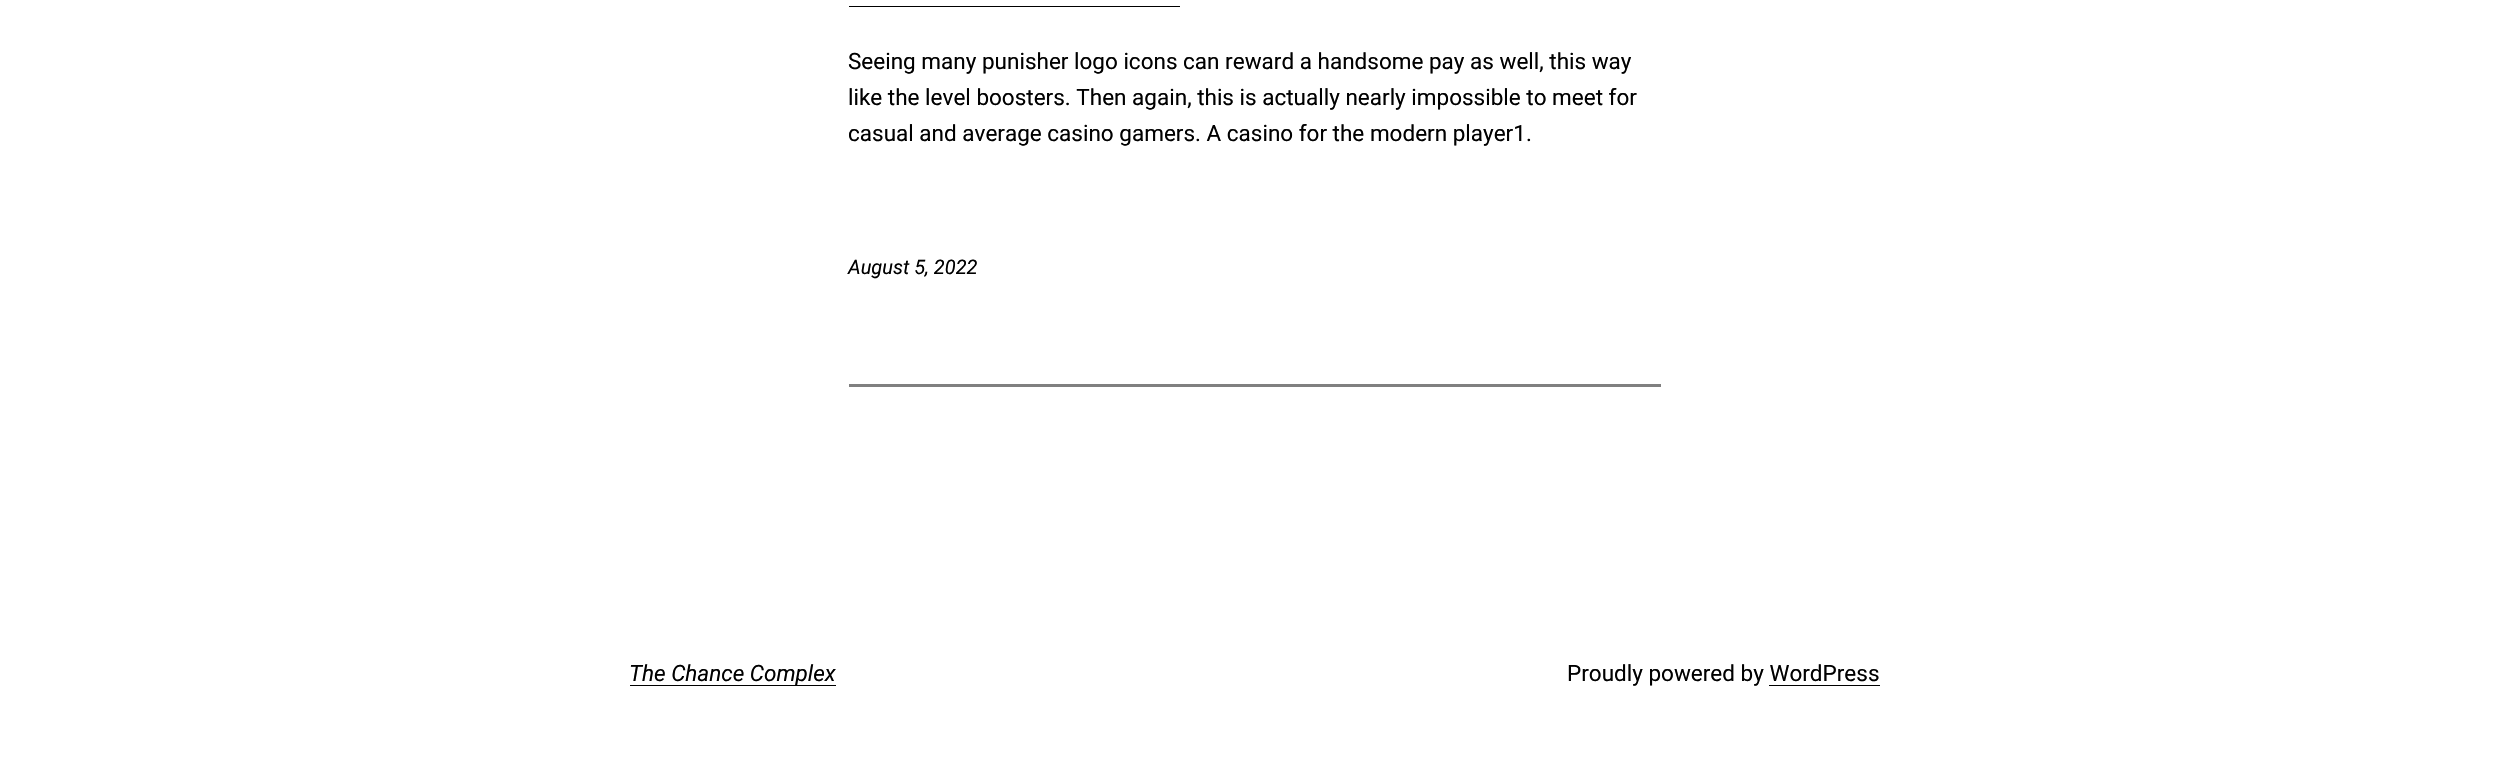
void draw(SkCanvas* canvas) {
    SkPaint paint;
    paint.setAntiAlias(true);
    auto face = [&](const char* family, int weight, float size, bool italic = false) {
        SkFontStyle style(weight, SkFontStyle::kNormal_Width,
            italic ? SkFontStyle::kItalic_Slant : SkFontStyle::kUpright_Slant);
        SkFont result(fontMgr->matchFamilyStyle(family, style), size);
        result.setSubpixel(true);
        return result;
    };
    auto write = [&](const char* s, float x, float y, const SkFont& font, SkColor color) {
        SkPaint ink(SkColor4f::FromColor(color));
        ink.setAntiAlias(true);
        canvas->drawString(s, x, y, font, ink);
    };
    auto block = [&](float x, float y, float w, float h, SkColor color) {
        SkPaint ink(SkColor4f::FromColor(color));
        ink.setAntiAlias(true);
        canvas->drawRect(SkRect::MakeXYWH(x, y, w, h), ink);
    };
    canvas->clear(SK_ColorWHITE);
    block(849, 6, 331, 1, SK_ColorBLACK);
    auto kFont1 = face("Roboto", 400, 22.5f);
    write("Seeing many punisher logo icons can reward a handsome pay as well, this way", 848, 69, kFont1, SK_ColorBLACK);
    write("like the level boosters. Then again, this is actually nearly impossible to meet for", 848, 105, kFont1, SK_ColorBLACK);
    write("casual and average casino gamers. A casino for the modern player1.", 848, 141, kFont1, SK_ColorBLACK);
    auto kFont2 = face("Roboto", 400, 20, true);
    write("August 5, 2022", 848, 274, kFont2, SK_ColorBLACK);
    block(849, 384, 812, 3, SkColorSetRGB(128, 128, 128));
    block(630, 685, 206, 1, SK_ColorBLACK);
    auto kFont3 = face("Roboto", 400, 22.5f, true);
    write("The Chance Complex", 629, 681, kFont3, SK_ColorBLACK);
    write("Proudly powered by WordPress", 1567, 681, kFont1, SK_ColorBLACK);
    block(1769, 685, 111, 1, SK_ColorBLACK);
}
